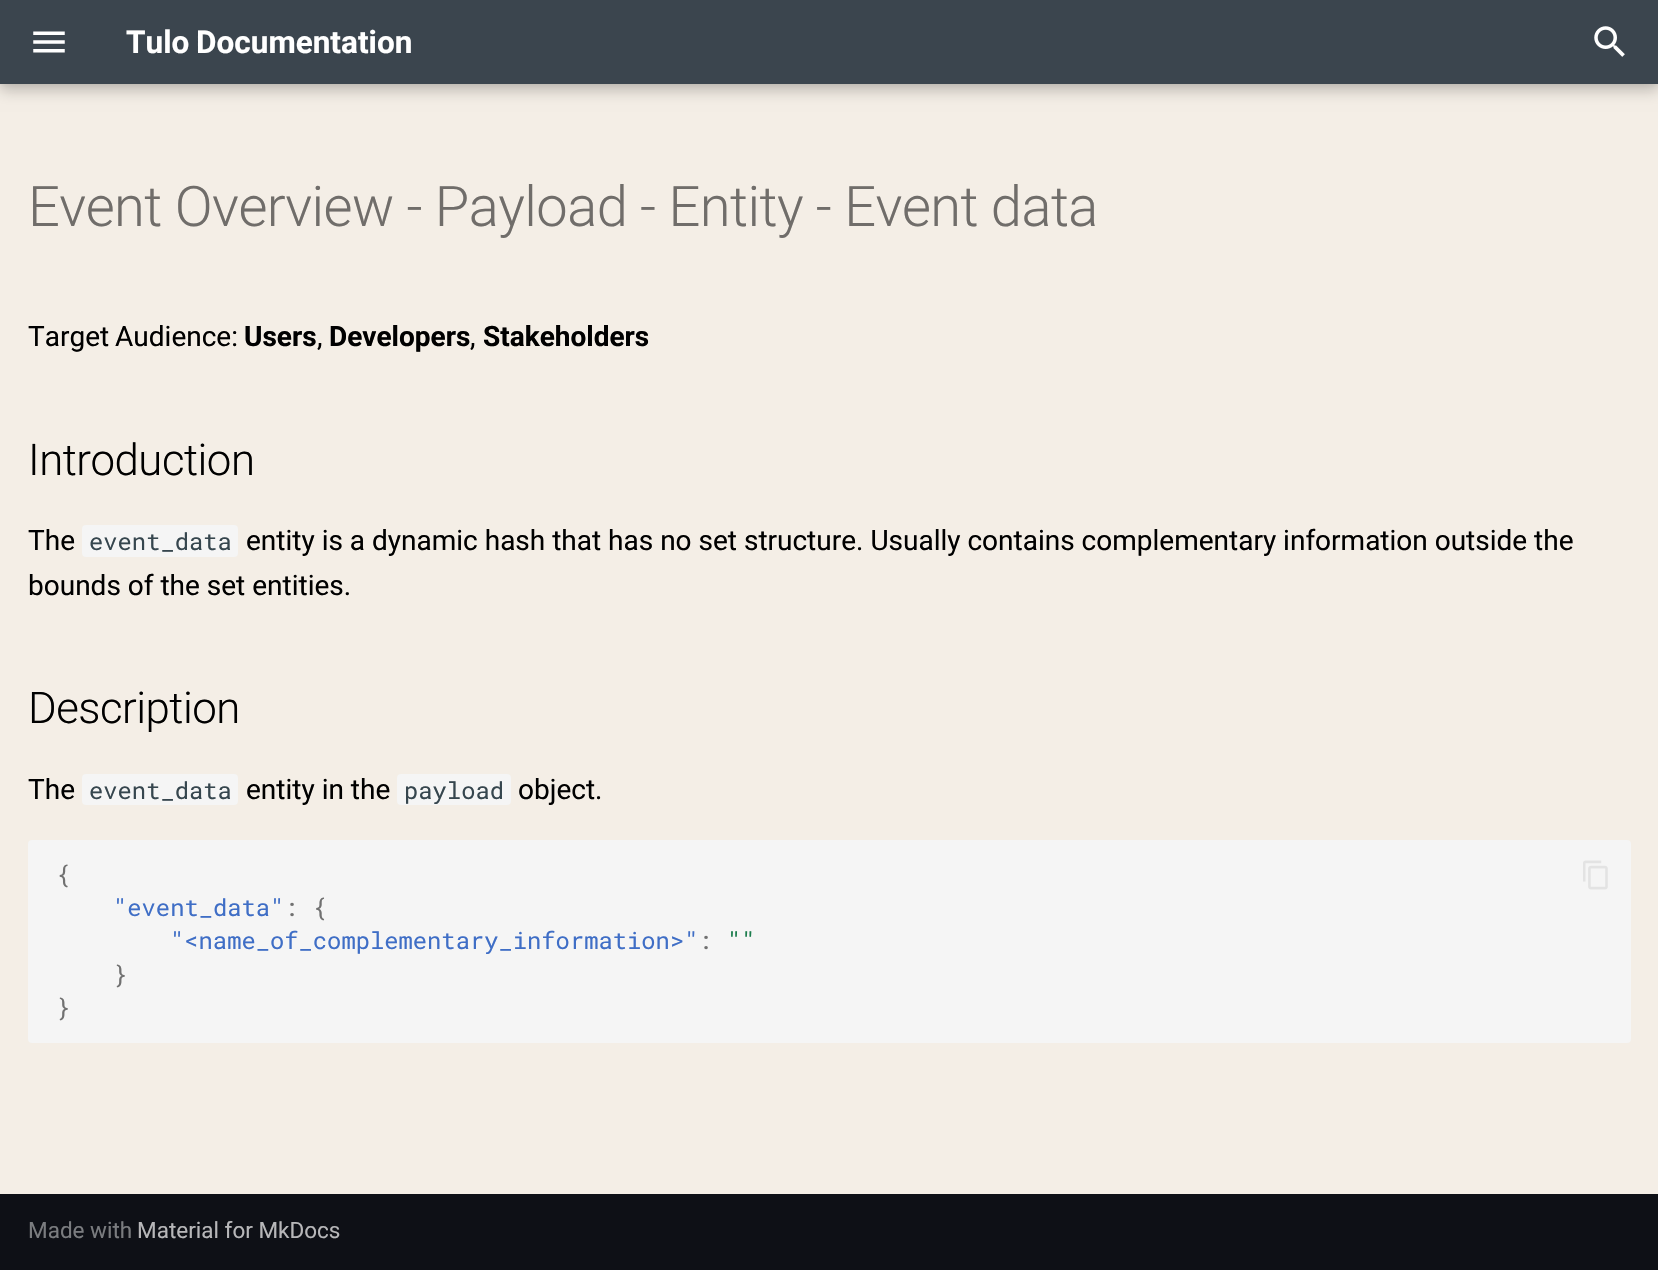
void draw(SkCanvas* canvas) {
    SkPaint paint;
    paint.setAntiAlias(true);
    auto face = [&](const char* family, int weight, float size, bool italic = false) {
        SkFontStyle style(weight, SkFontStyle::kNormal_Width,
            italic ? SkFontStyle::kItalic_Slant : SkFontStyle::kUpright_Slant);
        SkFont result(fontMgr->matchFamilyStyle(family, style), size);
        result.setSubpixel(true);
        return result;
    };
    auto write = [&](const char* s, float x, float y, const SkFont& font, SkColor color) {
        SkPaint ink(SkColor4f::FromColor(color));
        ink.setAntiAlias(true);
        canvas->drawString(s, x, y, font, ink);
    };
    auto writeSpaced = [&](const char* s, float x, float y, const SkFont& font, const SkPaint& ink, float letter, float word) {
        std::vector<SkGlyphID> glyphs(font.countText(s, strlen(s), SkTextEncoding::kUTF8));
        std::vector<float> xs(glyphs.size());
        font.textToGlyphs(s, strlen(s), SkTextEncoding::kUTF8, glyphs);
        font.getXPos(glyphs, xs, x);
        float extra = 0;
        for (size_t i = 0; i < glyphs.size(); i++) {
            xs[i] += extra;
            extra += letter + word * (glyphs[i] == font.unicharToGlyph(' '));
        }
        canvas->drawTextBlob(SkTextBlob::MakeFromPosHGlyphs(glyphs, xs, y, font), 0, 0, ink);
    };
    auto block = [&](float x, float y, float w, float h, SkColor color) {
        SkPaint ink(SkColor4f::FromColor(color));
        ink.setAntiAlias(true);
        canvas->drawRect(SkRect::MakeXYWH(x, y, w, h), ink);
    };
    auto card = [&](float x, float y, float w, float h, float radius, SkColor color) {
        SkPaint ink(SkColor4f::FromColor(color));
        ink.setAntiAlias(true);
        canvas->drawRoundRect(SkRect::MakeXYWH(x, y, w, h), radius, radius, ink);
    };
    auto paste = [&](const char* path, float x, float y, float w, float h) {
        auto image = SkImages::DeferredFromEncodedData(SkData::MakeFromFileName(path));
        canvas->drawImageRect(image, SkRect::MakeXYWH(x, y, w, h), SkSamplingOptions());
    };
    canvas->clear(SkColorSetRGB(244, 238, 230));
    paint.setColor(SkColorSetARGB(51, 0, 0, 0));
    paint.setMaskFilter(SkMaskFilter::MakeBlur(kNormal_SkBlurStyle, 7));
    canvas->drawRect(SkRect::MakeXYWH(0, 7, 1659, 84), paint);
    paint.setMaskFilter(nullptr);
    paint.setColor(SkColorSetARGB(26, 0, 0, 0));
    paint.setMaskFilter(SkMaskFilter::MakeBlur(kNormal_SkBlurStyle, 3.5f));
    canvas->drawRect(SkRect::MakeXYWH(0, 0, 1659, 84), paint);
    paint.setMaskFilter(nullptr);
    block(0, 0, 1658, 84, SkColorSetRGB(59, 69, 78));
    paste("pic1.png", 33, 31, 32, 22);
    auto kFont1 = face("Roboto", 700, 31.5f);
    paint.setColor(SK_ColorWHITE);
    writeSpaced("Tulo Documentation", 126, 53, kFont1, paint, 0, -1);
    paste("pic2.png", 1594, 26, 31, 31);
    auto kFont2 = face("Roboto", 300, 56);
    paint.setColor(SkColorSetRGB(112, 109, 106));
    writeSpaced("Event Overview - Payload - Entity - Event data", 28, 226, kFont2, paint, -0.55f, -0.25f);
    auto kFont3 = face("Roboto", 400, 28);
    paint.setColor(SK_ColorBLACK);
    writeSpaced("Target Audience:", 28, 346, kFont3, paint, 0, -1);
    auto kFont4 = face("Roboto", 700, 28);
    write("Users", 244, 346, kFont4, SK_ColorBLACK);
    write(",", 317, 346, kFont3, SK_ColorBLACK);
    write("Developers", 329, 346, kFont4, SK_ColorBLACK);
    write(",", 470, 346, kFont3, SK_ColorBLACK);
    write("Stakeholders", 483, 346, kFont4, SK_ColorBLACK);
    auto kFont5 = face("Roboto", 300, 43.75f);
    writeSpaced("Introduction", 28, 475, kFont5, paint, -0.5f, 0);
    write("The", 28, 550, kFont3, SK_ColorBLACK);
    card(82, 525, 156, 32, 4, SkColorSetRGB(245, 245, 245));
    auto kFont6 = face("Roboto Mono", 400, 23.8f);
    write("event_data", 89, 550, kFont6, SkColorSetRGB(54, 70, 78));
    write("entity is a dynamic hash that has no set structure. Usually contains complementary information outside the", 246, 550, kFont3, SK_ColorBLACK);
    write("bounds of the set entities.", 28, 595, kFont3, SK_ColorBLACK);
    writeSpaced("Description", 28, 723, kFont5, paint, -0.5f, 0);
    write("The", 28, 799, kFont3, SK_ColorBLACK);
    card(82, 774, 156, 31, 4, SkColorSetRGB(245, 245, 245));
    write("event_data", 89, 799, kFont6, SkColorSetRGB(54, 70, 78));
    write("entity in the", 246, 799, kFont3, SK_ColorBLACK);
    card(397, 774, 114, 31, 4, SkColorSetRGB(245, 245, 245));
    write("payload", 404, 799, kFont6, SkColorSetRGB(54, 70, 78));
    write("object.", 518, 799, kFont3, SK_ColorBLACK);
    card(28, 840, 1603, 203, 4, SkColorSetRGB(245, 245, 245));
    write("{", 56, 883, kFont6, SkColorSetRGB(113, 113, 113));
    write("\"event_data\"", 113, 916, kFont6, SkColorSetRGB(63, 110, 198));
    write(": {", 284, 916, kFont6, SkColorSetRGB(113, 113, 113));
    write("\"<name_of_complementary_information>\"", 170, 949, kFont6, SkColorSetRGB(63, 110, 198));
    write("\"\"", 727, 949, kFont6, SkColorSetRGB(28, 125, 77));
    write(":", 698, 949, kFont6, SkColorSetRGB(113, 113, 113));
    write("}", 113, 983, kFont6, SkColorSetRGB(113, 113, 113));
    write("}", 56, 1016, kFont6, SkColorSetRGB(113, 113, 113));
    paste("pic3.png", 1583, 860, 25, 30);
    block(0, 1194, 1658, 76, SkColorSetRGB(14, 16, 22));
    auto kFont7 = face("Roboto", 400, 22.5f);
    write("Made with", 28, 1238, kFont7, SkColorSetRGB(122, 124, 127));
    write("Material for MkDocs", 137, 1238, kFont7, SkColorSetRGB(183, 183, 185));
}
